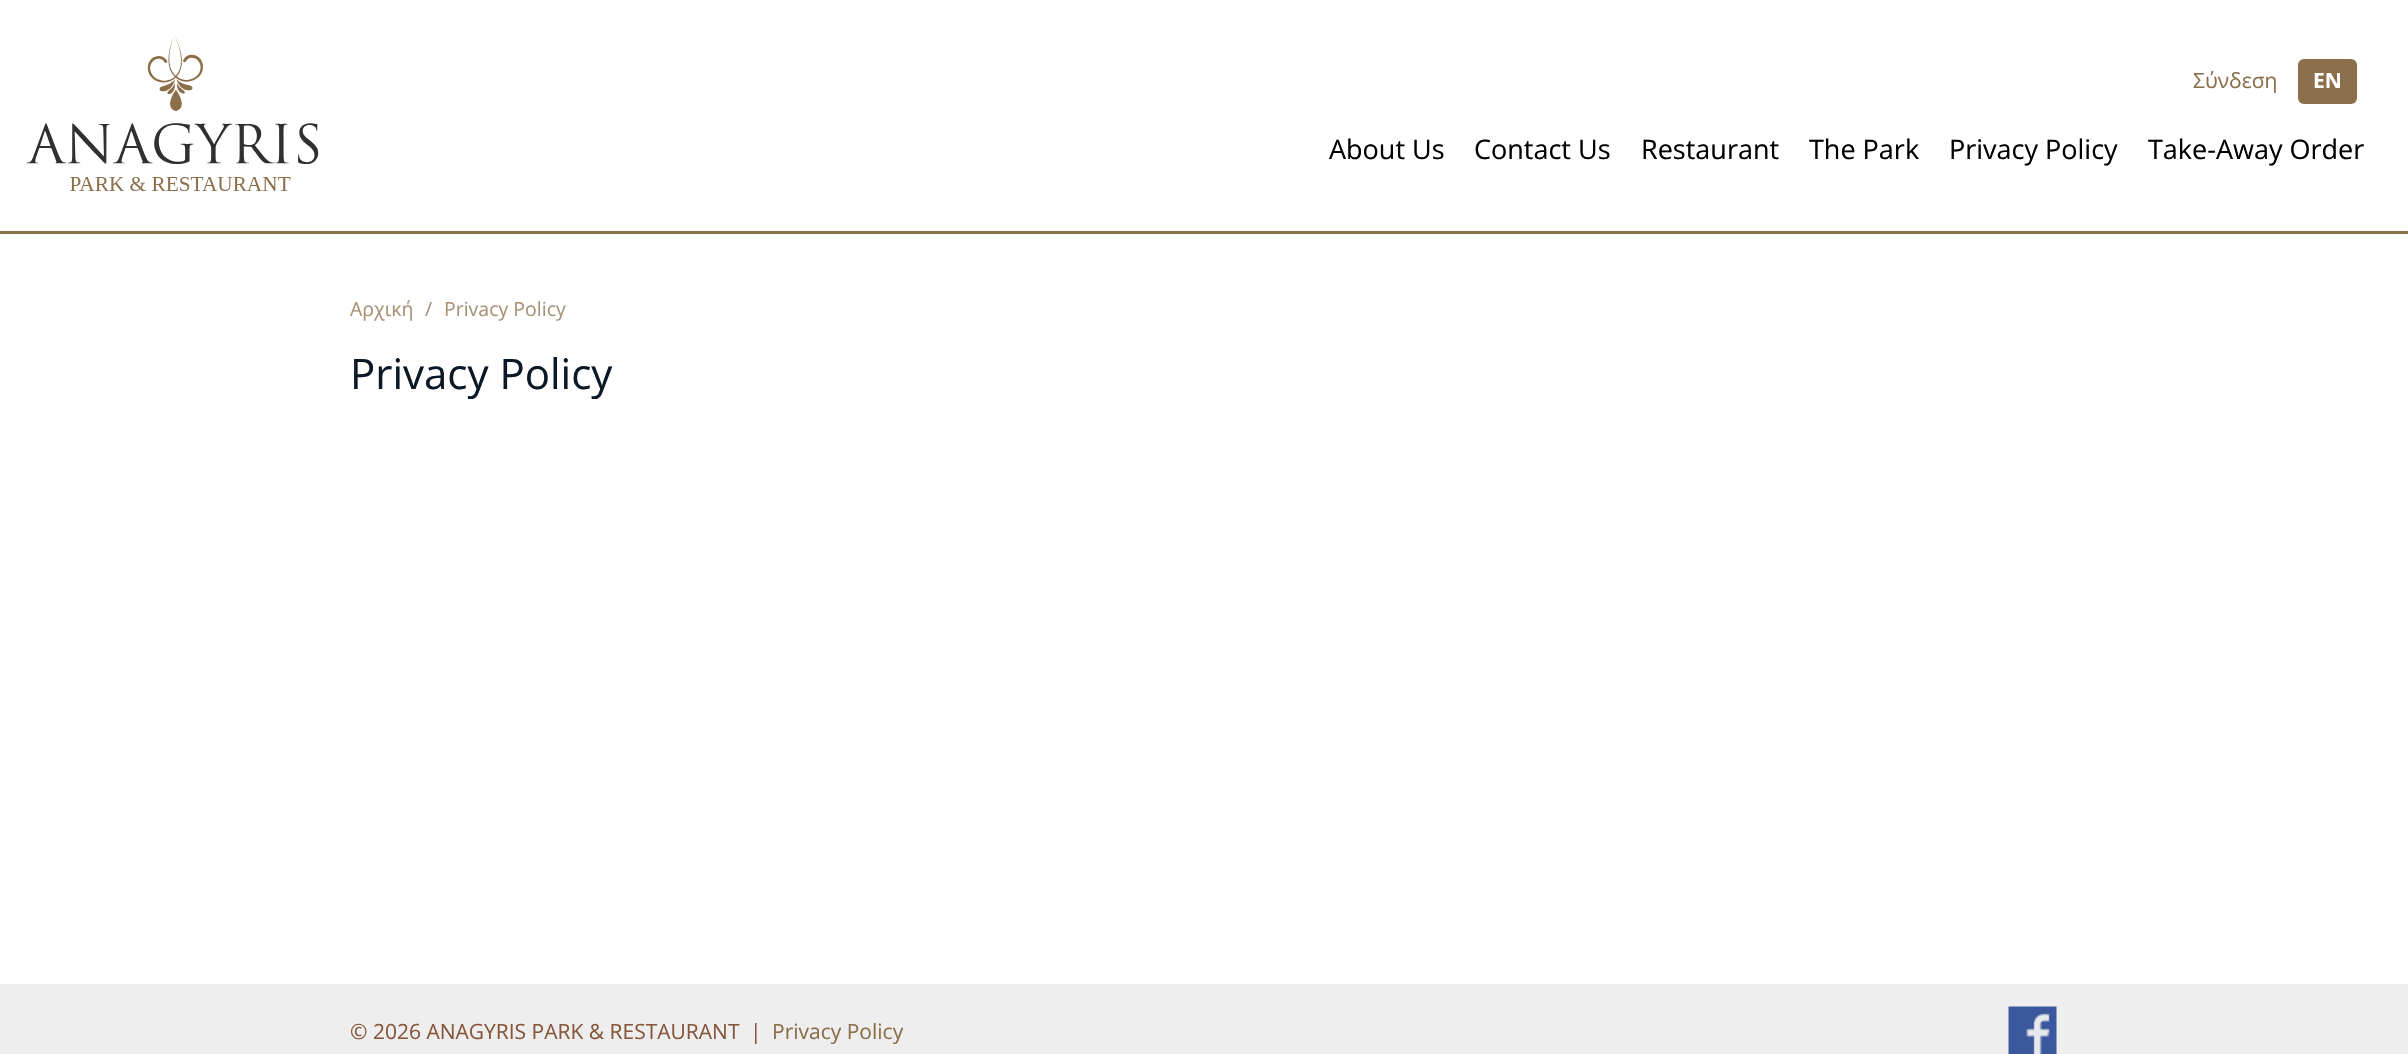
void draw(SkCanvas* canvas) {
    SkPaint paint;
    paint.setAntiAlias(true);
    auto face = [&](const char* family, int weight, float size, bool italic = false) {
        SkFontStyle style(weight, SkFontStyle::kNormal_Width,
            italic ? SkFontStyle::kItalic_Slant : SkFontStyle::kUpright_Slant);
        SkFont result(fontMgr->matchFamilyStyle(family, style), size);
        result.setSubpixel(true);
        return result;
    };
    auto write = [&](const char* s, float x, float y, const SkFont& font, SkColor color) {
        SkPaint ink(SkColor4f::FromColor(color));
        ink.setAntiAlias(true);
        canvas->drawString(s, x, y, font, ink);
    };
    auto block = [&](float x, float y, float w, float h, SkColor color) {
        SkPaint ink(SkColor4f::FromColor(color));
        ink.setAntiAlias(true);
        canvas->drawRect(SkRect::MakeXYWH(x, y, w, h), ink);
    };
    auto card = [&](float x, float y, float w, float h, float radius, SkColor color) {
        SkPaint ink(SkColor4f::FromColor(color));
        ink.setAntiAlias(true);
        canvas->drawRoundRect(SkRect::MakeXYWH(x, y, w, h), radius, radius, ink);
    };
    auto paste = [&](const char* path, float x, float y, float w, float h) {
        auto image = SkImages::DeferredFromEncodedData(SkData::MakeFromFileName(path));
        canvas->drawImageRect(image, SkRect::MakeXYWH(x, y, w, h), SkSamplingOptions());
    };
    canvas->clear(SK_ColorWHITE);
    block(0, 231, 2408, 3, SkColorSetRGB(139, 110, 74));
    paste("pic1.png", 26, 35, 293, 156);
    auto kFont1 = face("Open Sans", 400, 21);
    write("Σύνδεση", 2193, 88, kFont1, SkColorSetRGB(139, 110, 74));
    card(2298, 59, 59, 45, 6, SkColorSetRGB(139, 110, 74));
    auto kFont2 = face("Open Sans", 700, 21);
    write("EN", 2313, 88, kFont2, SK_ColorWHITE);
    auto kFont3 = face("Open Sans", 400, 27);
    write("About Us", 1329, 159, kFont3, SK_ColorBLACK);
    write("Contact Us", 1474, 159, kFont3, SK_ColorBLACK);
    write("Restaurant", 1641, 159, kFont3, SK_ColorBLACK);
    write("The Park", 1809, 159, kFont3, SK_ColorBLACK);
    write("Privacy Policy", 1949, 159, kFont3, SK_ColorBLACK);
    write("Take-Away Order", 2148, 159, kFont3, SK_ColorBLACK);
    auto kFont4 = face("Open Sans", 400, 19.5f);
    write("Αρχική", 350, 316, kFont4, SkColorSetRGB(168, 146, 119));
    write("/", 425, 316, kFont4, SkColorSetRGB(168, 146, 119));
    write("Privacy Policy", 444, 316, kFont4, SkColorSetRGB(168, 146, 119));
    auto kFont5 = face("Open Sans", 400, 42);
    write("Privacy Policy", 350, 389, kFont5, SkColorSetRGB(11, 24, 38));
    block(0, 984, 2408, 70, SkColorSetRGB(238, 238, 238));
    write("© 2026 ANAGYRIS PARK & RESTAURANT", 350, 1039, kFont1, SkColorSetRGB(135, 87, 59));
    write("|", 750, 1039, kFont1, SkColorSetRGB(135, 87, 59));
    write("Privacy Policy", 772, 1039, kFont1, SkColorSetRGB(139, 110, 74));
    paste("pic2.png", 2008, 1006, 49, 48);
}
